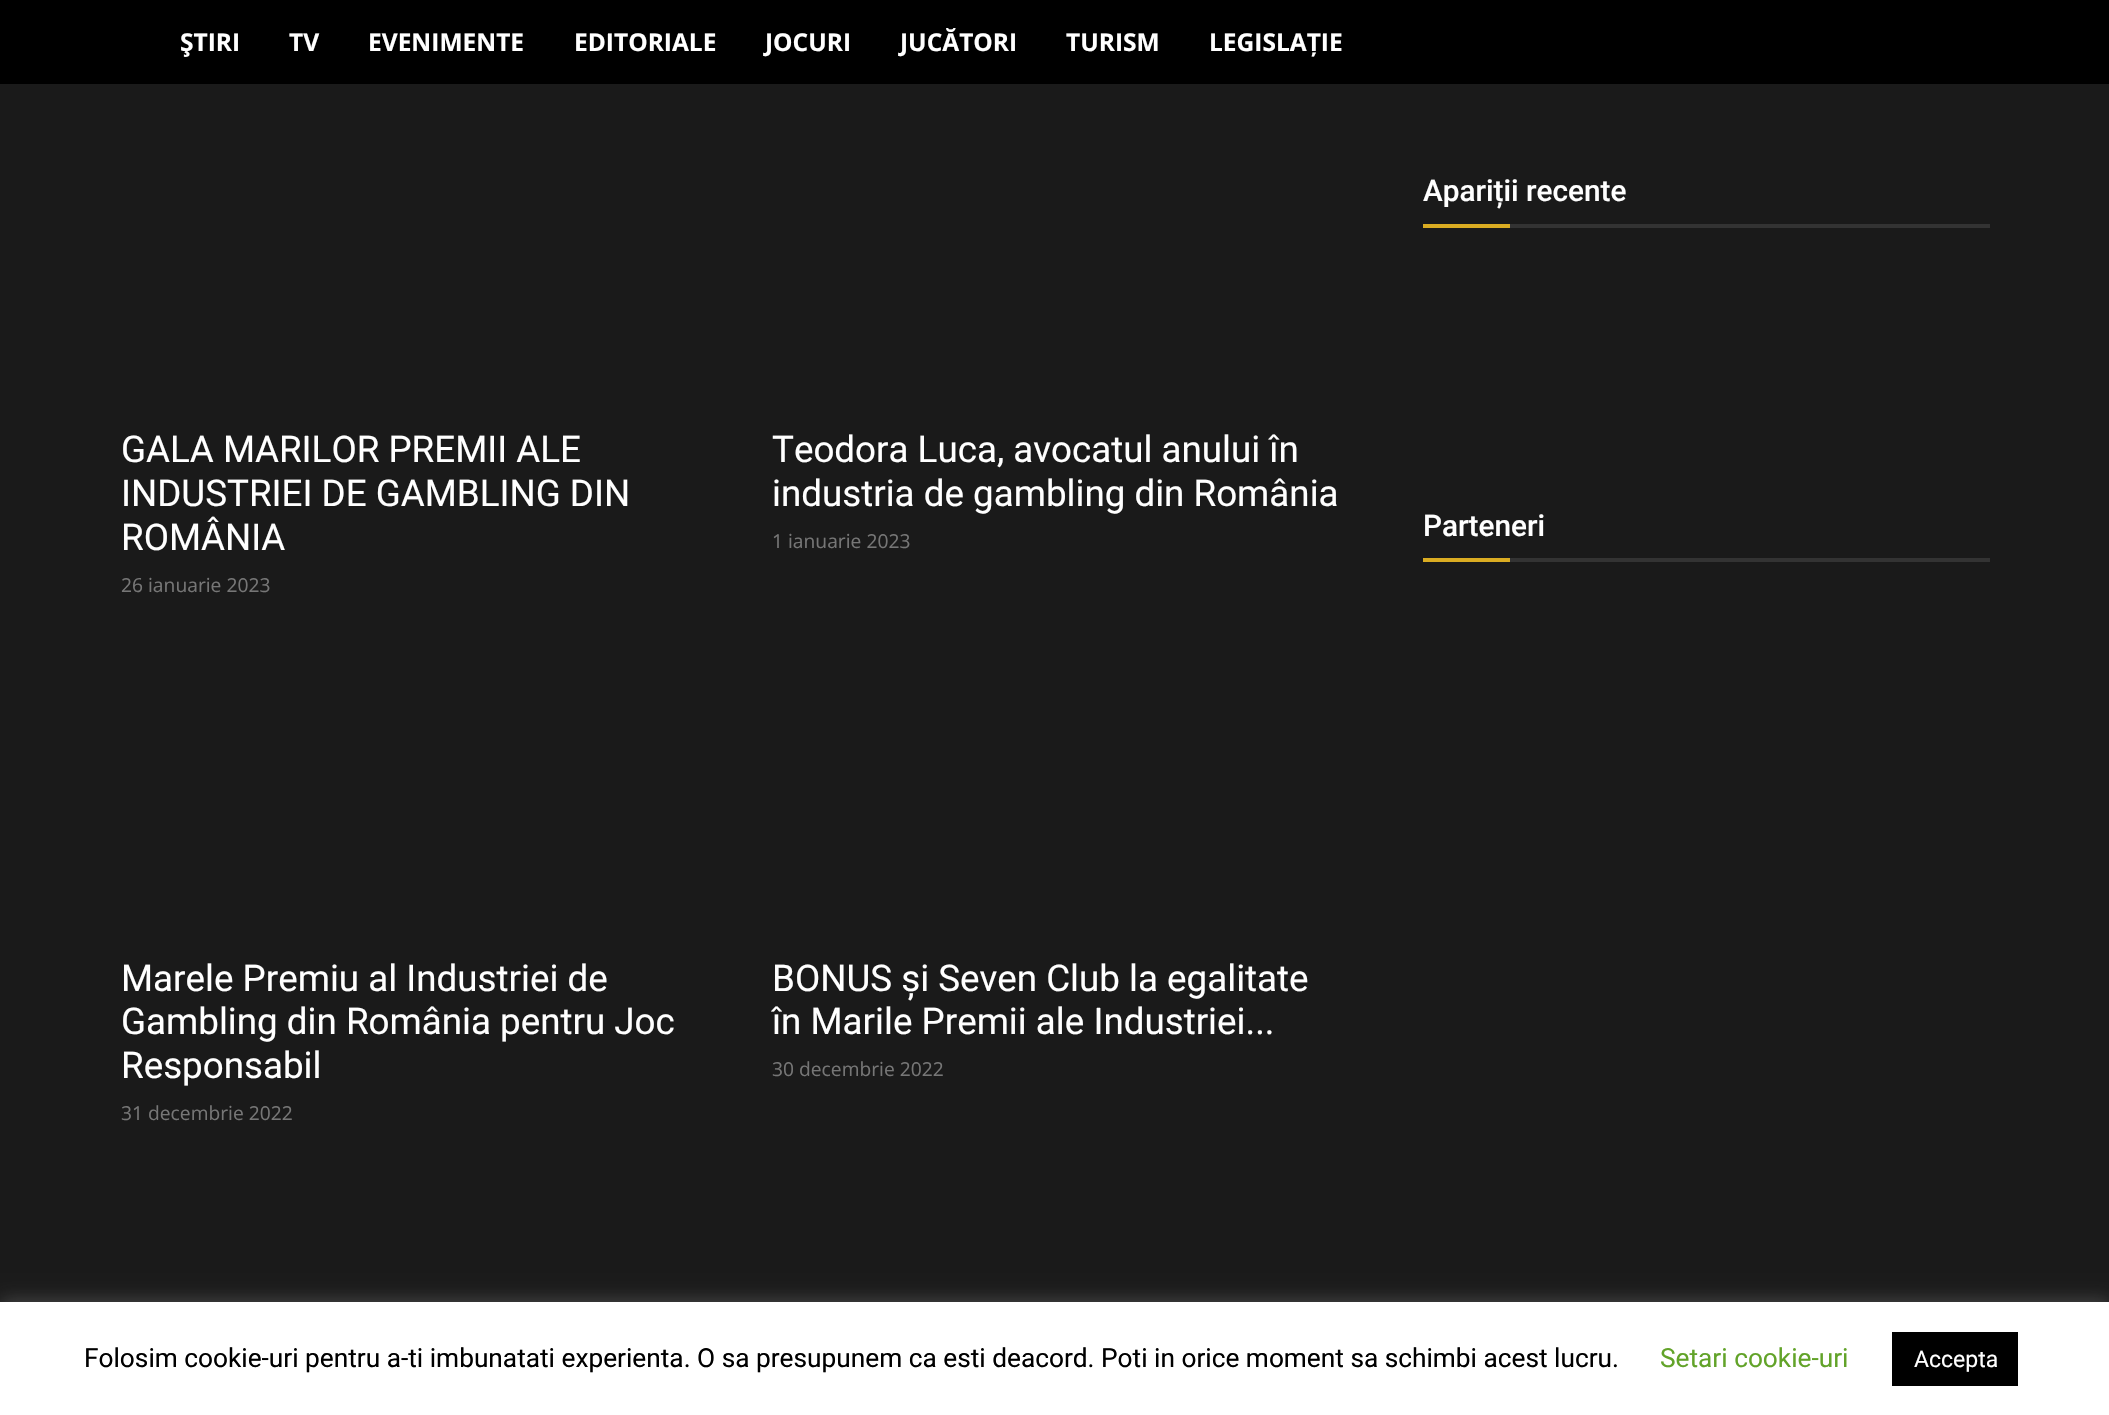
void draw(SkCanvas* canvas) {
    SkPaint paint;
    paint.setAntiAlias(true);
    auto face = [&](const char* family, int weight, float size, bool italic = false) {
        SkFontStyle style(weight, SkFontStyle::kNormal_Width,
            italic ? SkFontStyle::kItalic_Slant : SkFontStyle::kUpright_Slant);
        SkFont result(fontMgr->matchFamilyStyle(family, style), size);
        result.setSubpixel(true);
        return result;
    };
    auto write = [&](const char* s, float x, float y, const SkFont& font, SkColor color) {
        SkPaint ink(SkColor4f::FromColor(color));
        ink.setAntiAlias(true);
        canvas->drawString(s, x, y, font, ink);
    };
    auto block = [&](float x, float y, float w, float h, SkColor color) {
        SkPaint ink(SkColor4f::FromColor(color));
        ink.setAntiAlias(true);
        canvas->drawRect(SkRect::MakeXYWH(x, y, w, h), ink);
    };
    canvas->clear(SkColorSetRGB(26, 26, 26));
    block(0, 0, 2109, 84, SK_ColorBLACK);
    auto kFont1 = face("Open Sans", 700, 24.5f);
    write("ŞTIRI", 180, 51, kFont1, SK_ColorWHITE);
    write("TV", 289, 51, kFont1, SK_ColorWHITE);
    write("EVENIMENTE", 368, 51, kFont1, SK_ColorWHITE);
    write("EDITORIALE", 574, 51, kFont1, SK_ColorWHITE);
    write("JOCURI", 765, 51, kFont1, SK_ColorWHITE);
    write("JUCĂTORI", 900, 51, kFont1, SK_ColorWHITE);
    write("TURISM", 1066, 51, kFont1, SK_ColorWHITE);
    write("LEGISLAȚIE", 1209, 51, kFont1, SK_ColorWHITE);
    auto kFont2 = face("Roboto", 500, 29.75f);
    write("Apariții recente", 1423, 201, kFont2, SK_ColorWHITE);
    block(1423, 224, 87, 4, SkColorSetRGB(218, 172, 34));
    block(1510, 224, 480, 4, SkColorSetRGB(51, 51, 51));
    write("Parteneri", 1423, 536, kFont2, SK_ColorWHITE);
    block(1423, 558, 87, 4, SkColorSetRGB(218, 172, 34));
    block(1510, 558, 480, 4, SkColorSetRGB(51, 51, 51));
    auto kFont3 = face("Roboto", 400, 36.75f);
    write("GALA MARILOR PREMII ALE", 121, 462, kFont3, SK_ColorWHITE);
    write("INDUSTRIEI DE GAMBLING DIN", 121, 506, kFont3, SK_ColorWHITE);
    write("ROMÂNIA", 121, 550, kFont3, SK_ColorWHITE);
    auto kFont4 = face("Open Sans", 400, 19.25f);
    write("26 ianuarie 2023", 121, 592, kFont4, SkColorSetRGB(118, 118, 118));
    write("Teodora Luca, avocatul anului în", 772, 462, kFont3, SK_ColorWHITE);
    write("industria de gambling din România", 772, 506, kFont3, SK_ColorWHITE);
    write("1 ianuarie 2023", 772, 548, kFont4, SkColorSetRGB(118, 118, 118));
    write("Marele Premiu al Industriei de", 121, 991, kFont3, SK_ColorWHITE);
    write("Gambling din România pentru Joc", 121, 1034, kFont3, SK_ColorWHITE);
    write("Responsabil", 121, 1078, kFont3, SK_ColorWHITE);
    write("31 decembrie 2022", 121, 1120, kFont4, SkColorSetRGB(118, 118, 118));
    write("BONUS și Seven Club la egalitate", 772, 991, kFont3, SK_ColorWHITE);
    write("în Marile Premii ale Industriei...", 772, 1034, kFont3, SK_ColorWHITE);
    write("30 decembrie 2022", 772, 1076, kFont4, SkColorSetRGB(118, 118, 118));
    paint.setColor(SkColorSetARGB(77, 172, 171, 171));
    paint.setMaskFilter(SkMaskFilter::MakeBlur(kNormal_SkBlurStyle, 9));
    canvas->drawRect(SkRect::MakeXYWH(0, 1300, 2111, 114), paint);
    paint.setMaskFilter(nullptr);
    block(0, 1302, 2109, 113, SK_ColorWHITE);
    auto kFont5 = face("Roboto", 400, 26.25f);
    write("Folosim cookie-uri pentru a-ti imbunatati experienta. O sa presupunem ca esti deacord. Poti in orice moment sa schimbi acest lucru.", 84, 1367, kFont5, SK_ColorBLACK);
    write("Setari cookie-uri", 1660, 1367, kFont5, SkColorSetRGB(98, 163, 41));
    block(1892, 1332, 126, 54, SK_ColorBLACK);
    auto kFont6 = face("Roboto", 400, 23);
    write("Accepta", 1914, 1367, kFont6, SK_ColorWHITE);
}
